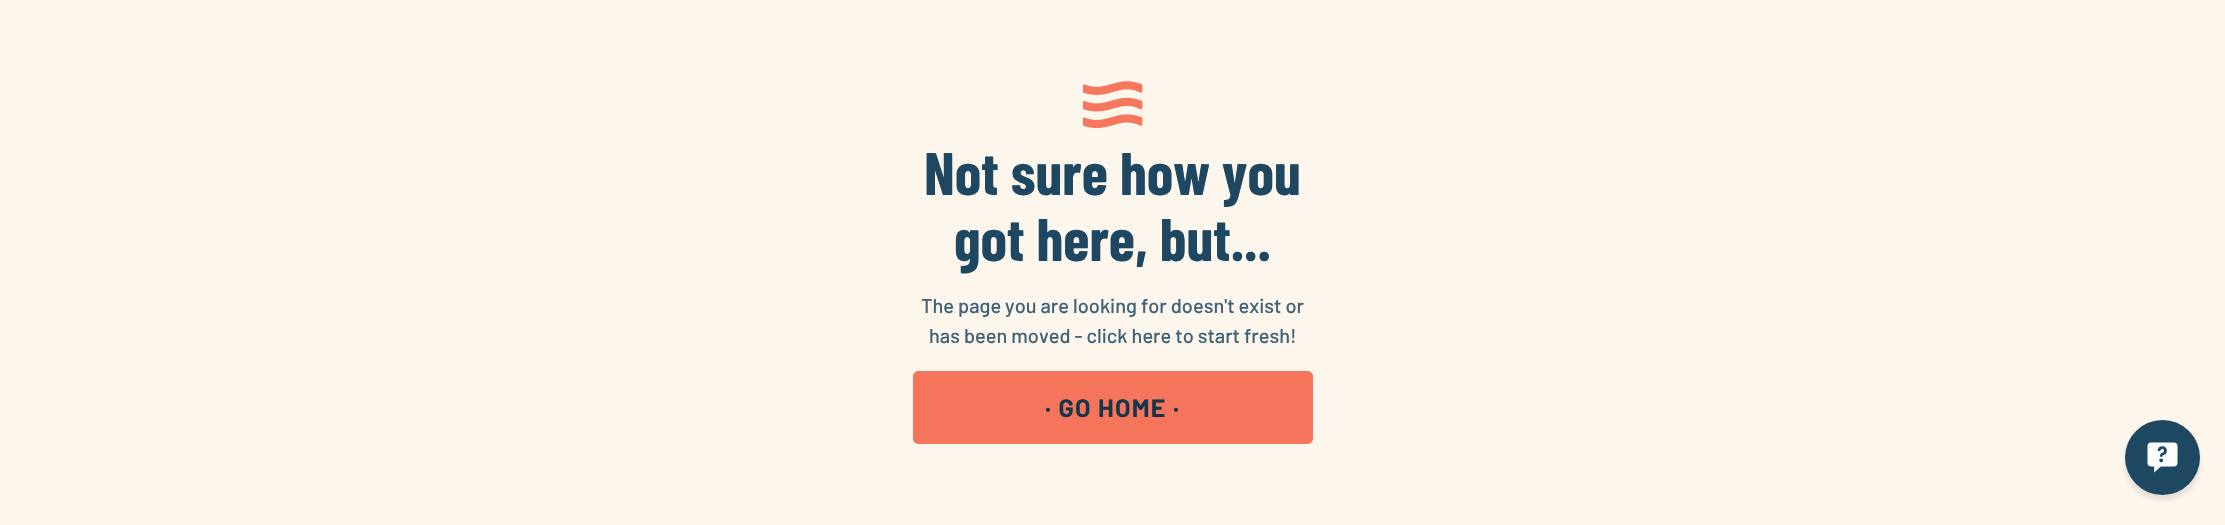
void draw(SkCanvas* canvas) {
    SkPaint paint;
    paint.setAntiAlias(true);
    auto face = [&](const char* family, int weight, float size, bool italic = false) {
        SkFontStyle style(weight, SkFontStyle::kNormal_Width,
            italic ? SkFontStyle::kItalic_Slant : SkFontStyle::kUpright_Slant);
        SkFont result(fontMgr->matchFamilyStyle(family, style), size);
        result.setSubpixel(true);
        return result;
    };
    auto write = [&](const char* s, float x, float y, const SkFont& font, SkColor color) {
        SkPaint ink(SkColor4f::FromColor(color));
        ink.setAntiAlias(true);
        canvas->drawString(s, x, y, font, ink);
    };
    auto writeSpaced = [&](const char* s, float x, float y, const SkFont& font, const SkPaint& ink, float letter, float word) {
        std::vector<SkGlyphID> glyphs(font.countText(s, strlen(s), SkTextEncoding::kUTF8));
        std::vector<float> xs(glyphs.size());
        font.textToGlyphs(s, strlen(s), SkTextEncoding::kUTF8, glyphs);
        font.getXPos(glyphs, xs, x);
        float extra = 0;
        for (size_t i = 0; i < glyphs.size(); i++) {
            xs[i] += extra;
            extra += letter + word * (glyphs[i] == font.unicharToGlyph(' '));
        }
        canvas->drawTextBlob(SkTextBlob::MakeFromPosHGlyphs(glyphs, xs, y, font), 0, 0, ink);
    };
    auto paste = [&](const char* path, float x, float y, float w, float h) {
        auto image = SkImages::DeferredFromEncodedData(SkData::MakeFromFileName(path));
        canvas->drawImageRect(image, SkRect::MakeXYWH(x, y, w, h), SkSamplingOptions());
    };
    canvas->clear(SkColorSetRGB(253, 246, 237));
    paste("pic1.png", 1083, 81, 60, 47);
    auto kFont1 = face("Barlow Condensed", 700, 60);
    write("Not sure how you", 924, 195, kFont1, SkColorSetRGB(30, 72, 98));
    write("got here, but...", 954, 261, kFont1, SkColorSetRGB(30, 72, 98));
    auto kFont2 = face("Barlow", 500, 20);
    write("The page you are looking for doesn't exist or", 921, 313, kFont2, SkColorSetRGB(63, 98, 119));
    write("has been moved - click here to start fresh!", 929, 343, kFont2, SkColorSetRGB(63, 98, 119));
    paint.setColor(SkColorSetRGB(245, 117, 92));
    canvas->drawRoundRect(SkRect::MakeXYWH(913.5f, 371.5f, 399, 72), 4.5f, 4.5f, paint);
    paint.setStyle(SkPaint::kStroke_Style);
    paint.setStrokeWidth(1);
    canvas->drawRoundRect(SkRect::MakeXYWH(913.5f, 371.5f, 399, 72), 4.5f, 4.5f, paint);
    auto kFont3 = face("Barlow", 700, 25);
    paint.setStyle(SkPaint::kFill_Style);
    paint.setColor(SkColorSetRGB(22, 54, 74));
    writeSpaced("· GO HOME ·", 1045, 417, kFont3, paint, 1.25f, 0);
    paste("pic2.png", 2123, 420, 79, 82);
}
